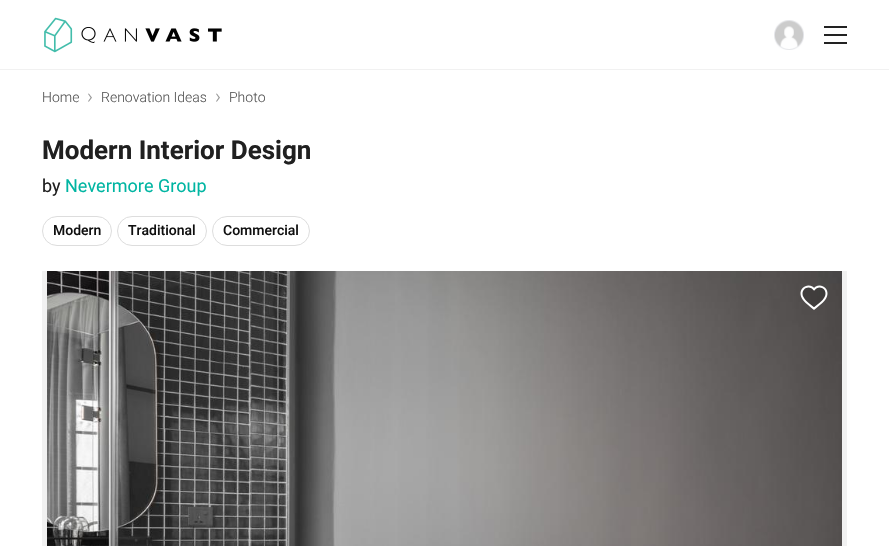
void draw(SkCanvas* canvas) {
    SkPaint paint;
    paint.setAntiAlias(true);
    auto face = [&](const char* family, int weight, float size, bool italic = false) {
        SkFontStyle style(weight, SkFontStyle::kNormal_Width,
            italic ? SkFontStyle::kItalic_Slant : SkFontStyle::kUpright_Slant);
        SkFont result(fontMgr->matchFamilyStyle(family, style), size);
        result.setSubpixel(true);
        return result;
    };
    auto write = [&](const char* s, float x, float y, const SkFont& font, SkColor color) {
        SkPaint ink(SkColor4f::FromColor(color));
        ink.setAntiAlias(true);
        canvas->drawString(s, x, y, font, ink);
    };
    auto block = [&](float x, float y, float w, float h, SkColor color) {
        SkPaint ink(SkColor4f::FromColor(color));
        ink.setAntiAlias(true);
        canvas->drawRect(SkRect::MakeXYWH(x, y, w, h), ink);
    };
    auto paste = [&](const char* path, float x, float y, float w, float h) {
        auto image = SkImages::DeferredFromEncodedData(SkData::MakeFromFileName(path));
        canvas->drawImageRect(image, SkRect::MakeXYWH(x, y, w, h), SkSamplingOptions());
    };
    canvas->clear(SK_ColorWHITE);
    block(0, 69, 889, 1, SkColorSetRGB(241, 241, 241));
    paste("pic1.png", 44, 17, 178, 36);
    paste("pic2.png", 774, 20, 30, 30);
    block(824, 26, 23, 2, SkColorSetRGB(34, 34, 34));
    block(824, 34, 23, 2, SkColorSetRGB(34, 34, 34));
    block(824, 42, 23, 2, SkColorSetRGB(34, 34, 34));
    auto kFont1 = face("Roboto", 300, 14);
    write("Home", 42, 102, kFont1, SkColorSetRGB(85, 85, 85));
    auto kFont2 = face("Roboto", 300, 20);
    write("›", 87, 103, kFont2, SkColorSetRGB(153, 153, 153));
    write("Renovation Ideas", 101, 102, kFont1, SkColorSetRGB(85, 85, 85));
    write("›", 215, 103, kFont2, SkColorSetRGB(153, 153, 153));
    write("Photo", 229, 102, kFont1, SkColorSetRGB(85, 85, 85));
    auto kFont3 = face("Roboto", 700, 26);
    write("Modern Interior Design", 42, 159, kFont3, SkColorSetRGB(32, 32, 32));
    auto kFont4 = face("Roboto", 400, 18);
    write("by", 42, 192, kFont4, SkColorSetRGB(32, 32, 32));
    write("Nevermore Group", 65, 192, kFont4, SkColorSetRGB(0, 181, 162));
    paint.setStyle(SkPaint::kStroke_Style);
    paint.setStrokeWidth(1);
    paint.setColor(SkColorSetRGB(221, 221, 221));
    canvas->drawRoundRect(SkRect::MakeXYWH(42.5f, 216.5f, 69, 29), 14.5f, 14.5f, paint);
    auto kFont5 = face("Roboto", 500, 14);
    write("Modern", 53, 235, kFont5, SkColorSetRGB(16, 16, 16));
    canvas->drawRoundRect(SkRect::MakeXYWH(117.5f, 216.5f, 89, 29), 14.5f, 14.5f, paint);
    write("Traditional", 128, 235, kFont5, SkColorSetRGB(16, 16, 16));
    canvas->drawRoundRect(SkRect::MakeXYWH(212.5f, 216.5f, 97, 29), 14.5f, 14.5f, paint);
    write("Commercial", 223, 235, kFont5, SkColorSetRGB(16, 16, 16));
    block(42, 271, 805, 275, SkColorSetRGB(241, 241, 241));
    paste("pic3.png", 47, 271, 795, 275);
    paste("pic4.png", 800, 285, 28, 25);
}
